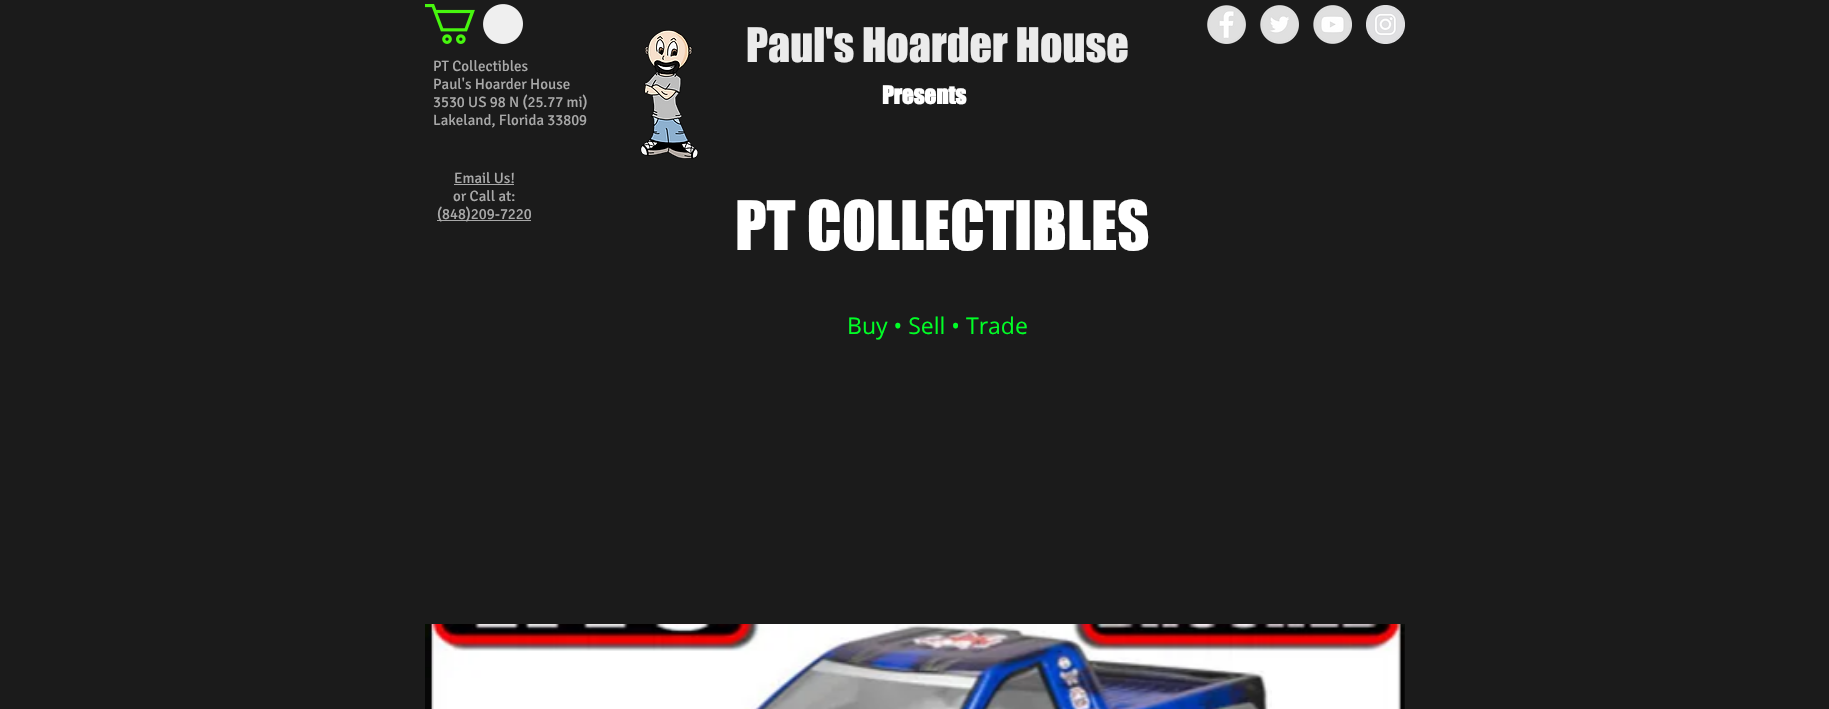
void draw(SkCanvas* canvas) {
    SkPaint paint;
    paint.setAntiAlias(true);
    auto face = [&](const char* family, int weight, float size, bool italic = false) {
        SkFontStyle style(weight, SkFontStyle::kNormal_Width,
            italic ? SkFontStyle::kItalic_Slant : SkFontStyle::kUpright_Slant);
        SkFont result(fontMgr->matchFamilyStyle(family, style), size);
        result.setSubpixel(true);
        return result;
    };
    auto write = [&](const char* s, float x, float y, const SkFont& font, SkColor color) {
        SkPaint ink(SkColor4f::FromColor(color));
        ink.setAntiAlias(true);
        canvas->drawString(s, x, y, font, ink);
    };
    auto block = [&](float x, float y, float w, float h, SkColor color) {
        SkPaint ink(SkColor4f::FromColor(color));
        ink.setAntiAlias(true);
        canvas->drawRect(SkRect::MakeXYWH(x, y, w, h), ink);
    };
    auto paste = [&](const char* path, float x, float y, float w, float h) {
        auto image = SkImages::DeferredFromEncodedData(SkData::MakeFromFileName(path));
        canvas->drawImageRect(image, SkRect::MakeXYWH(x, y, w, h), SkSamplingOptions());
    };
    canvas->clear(SkColorSetRGB(27, 27, 27));
    paste("pic1.png", 425, 4, 98, 40);
    paste("pic2.png", 640, 29, 59, 130);
    auto kFont1 = face("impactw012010", 400, 44);
    write("Paul's Hoarder House", 746, 62, kFont1, SkColorSetRGB(235, 235, 235));
    paste("pic3.png", 1207, 5, 39, 39);
    paste("pic4.png", 1260, 5, 39, 39);
    paste("pic5.png", 1313, 5, 39, 39);
    paste("pic6.png", 1366, 5, 39, 39);
    auto kFont2 = face("Signika", 400, 15);
    write("PT Collectibles", 433, 71, kFont2, SkColorSetRGB(169, 169, 169));
    write("Paul's Hoarder House", 433, 89, kFont2, SkColorSetRGB(169, 169, 169));
    write("3530 US 98 N (25.77 mi)", 433, 107, kFont2, SkColorSetRGB(169, 169, 169));
    write("Lakeland, Florida 33809", 433, 125, kFont2, SkColorSetRGB(169, 169, 169));
    auto kFont3 = face("impactw012010", 700, 23);
    write("Presents", 882, 104, kFont3, SK_ColorWHITE);
    write("Email Us!", 454, 183, kFont2, SkColorSetRGB(169, 169, 169));
    block(454, 184, 60, 1, SkColorSetRGB(169, 169, 169));
    write("or Call at:", 453, 201, kFont2, SkColorSetRGB(169, 169, 169));
    block(437, 220, 94, 1, SkColorSetRGB(169, 169, 169));
    write("(848)209-7220", 437, 219, kFont2, SkColorSetRGB(169, 169, 169));
    auto kFont4 = face("impactw012010", 400, 63);
    write("PT COLLECTIBLES", 735, 250, kFont4, SK_ColorWHITE);
    auto kFont5 = face("Open Sans", 400, 23);
    write("Buy • Sell • Trade", 847, 334, kFont5, SkColorSetRGB(0, 255, 38));
    paste("pic7.png", 425, 624, 980, 85);
}
